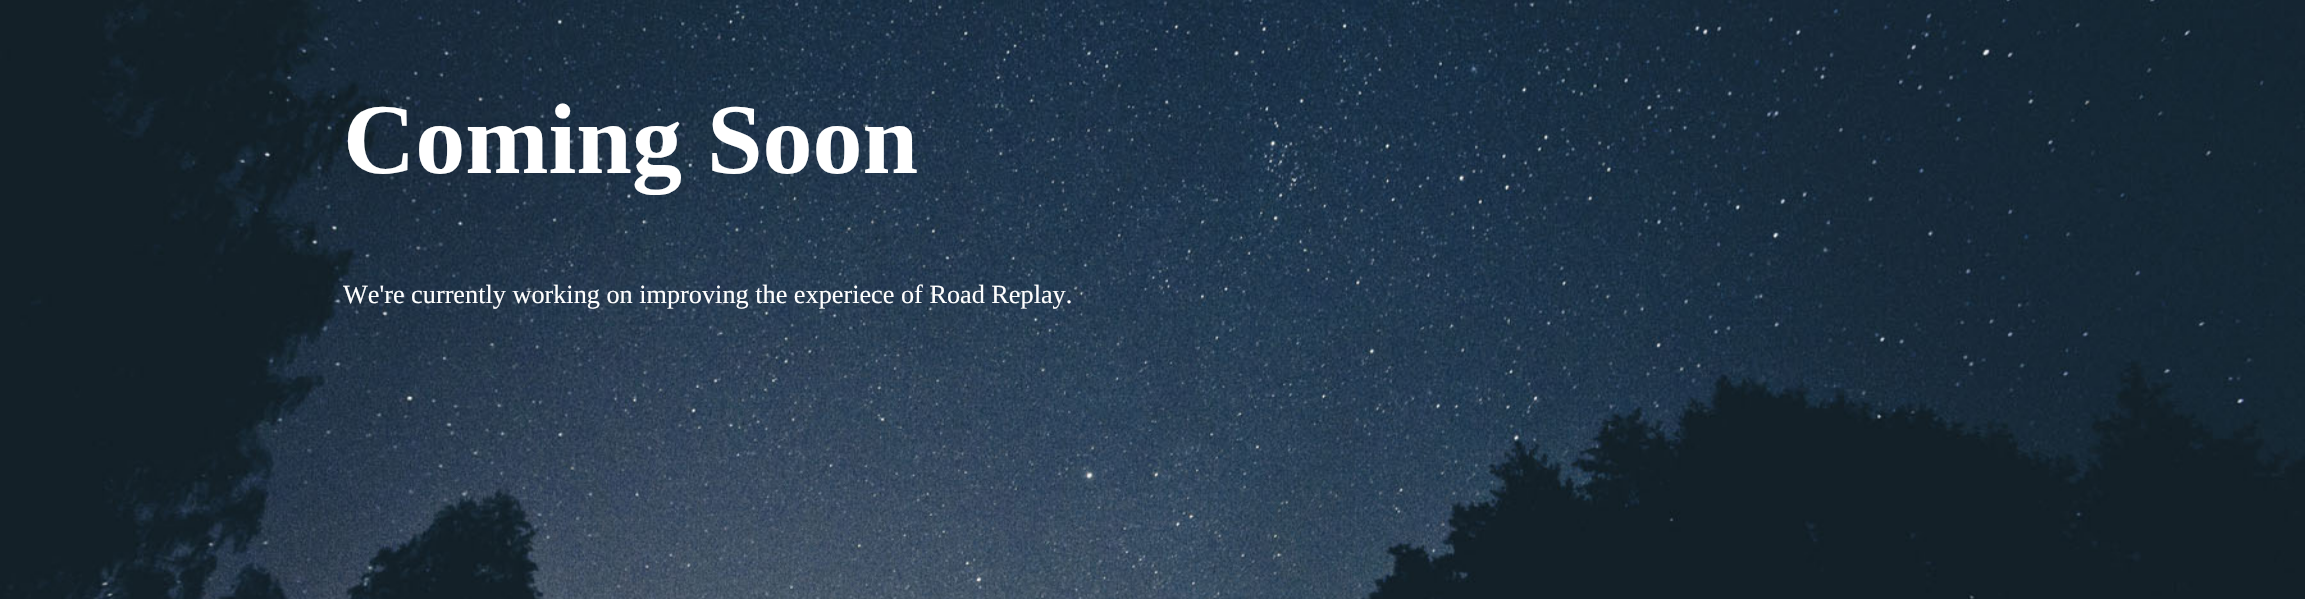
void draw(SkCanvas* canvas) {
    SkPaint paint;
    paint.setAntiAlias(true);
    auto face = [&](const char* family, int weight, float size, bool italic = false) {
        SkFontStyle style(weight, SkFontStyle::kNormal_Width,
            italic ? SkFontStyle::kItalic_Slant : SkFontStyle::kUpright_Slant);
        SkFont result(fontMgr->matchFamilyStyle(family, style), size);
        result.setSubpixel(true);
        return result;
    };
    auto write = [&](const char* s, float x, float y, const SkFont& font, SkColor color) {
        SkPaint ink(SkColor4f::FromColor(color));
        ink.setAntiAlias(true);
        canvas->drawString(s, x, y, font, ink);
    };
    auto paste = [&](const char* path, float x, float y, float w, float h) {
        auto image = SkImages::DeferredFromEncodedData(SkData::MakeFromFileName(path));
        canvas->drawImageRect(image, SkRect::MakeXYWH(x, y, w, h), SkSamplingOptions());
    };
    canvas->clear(SK_ColorWHITE);
    paste("pic1.png", 0, 0, 2305, 599);
    auto kFont1 = face("Liberation Serif", 700, 100);
    write("Coming Soon", 343, 173, kFont1, SK_ColorWHITE);
    auto kFont2 = face("Liberation Serif", 400, 26.25f);
    write("We're currently working on improving the experiece of Road Replay.", 343, 303, kFont2, SK_ColorWHITE);
}
